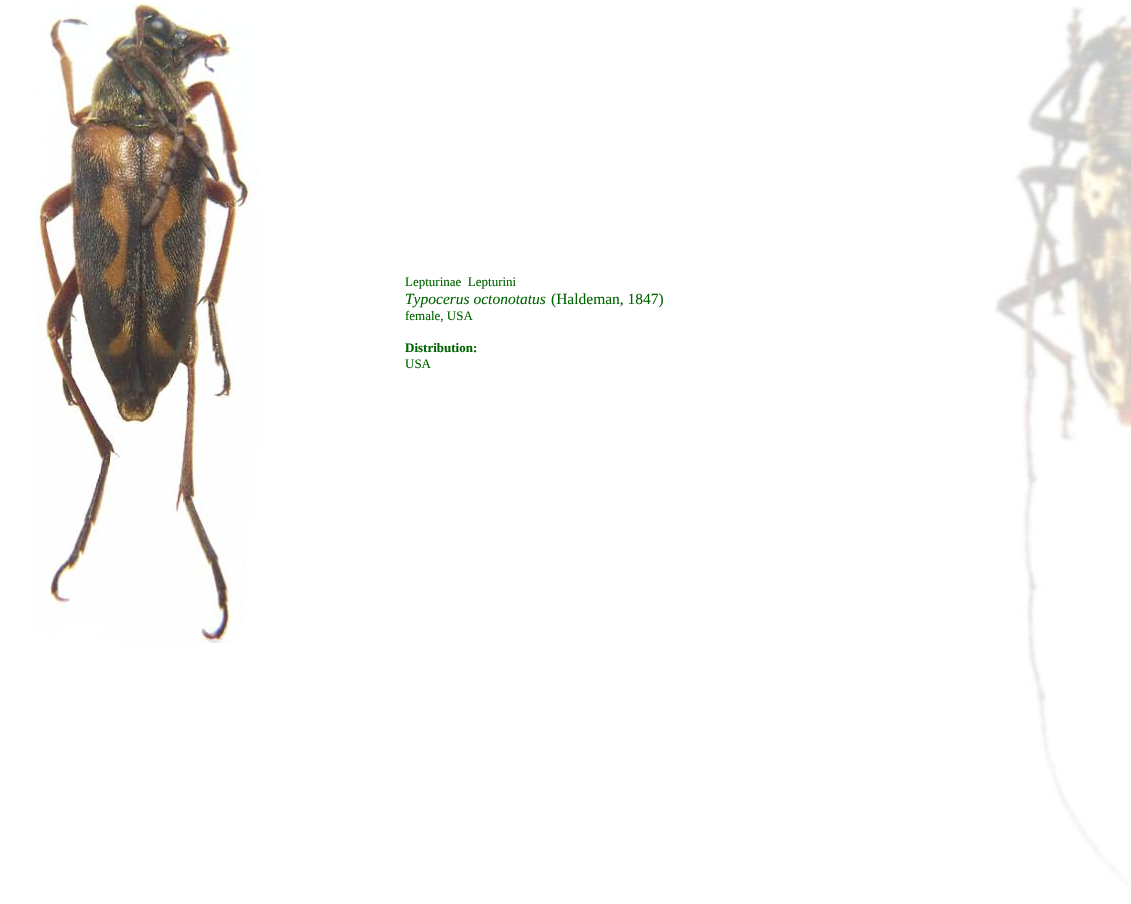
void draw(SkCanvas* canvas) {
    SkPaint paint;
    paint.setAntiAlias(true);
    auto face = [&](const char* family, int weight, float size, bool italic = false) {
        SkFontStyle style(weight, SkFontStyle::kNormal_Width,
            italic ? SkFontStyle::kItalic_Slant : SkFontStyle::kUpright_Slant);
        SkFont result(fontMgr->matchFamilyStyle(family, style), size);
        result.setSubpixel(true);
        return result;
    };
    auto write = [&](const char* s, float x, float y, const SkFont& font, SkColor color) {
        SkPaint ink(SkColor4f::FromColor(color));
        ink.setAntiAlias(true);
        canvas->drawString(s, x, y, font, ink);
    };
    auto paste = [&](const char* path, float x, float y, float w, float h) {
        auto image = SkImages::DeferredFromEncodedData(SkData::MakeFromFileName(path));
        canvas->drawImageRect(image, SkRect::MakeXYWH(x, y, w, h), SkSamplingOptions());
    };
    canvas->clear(SK_ColorWHITE);
    paste("pic1.png", 994, 6, 137, 880);
    paste("pic2.png", 34, 3, 225, 640);
    auto kFont1 = face("Liberation Serif", 400, 13);
    write("Lepturinae  Lepturini", 405, 286, kFont1, SkColorSetRGB(0, 100, 0));
    auto kFont2 = face("Liberation Serif", 400, 15.5f, true);
    write("Typocerus octonotatus", 405, 304, kFont2, SkColorSetRGB(0, 100, 0));
    auto kFont3 = face("Liberation Serif", 400, 15.5f);
    write("(Haldeman, 1847)", 551, 304, kFont3, SkColorSetRGB(0, 100, 0));
    write("female, USA", 405, 320, kFont1, SkColorSetRGB(0, 100, 0));
    auto kFont4 = face("Liberation Serif", 700, 13);
    write("Distribution:", 405, 352, kFont4, SkColorSetRGB(0, 100, 0));
    write("USA", 405, 368, kFont1, SkColorSetRGB(0, 100, 0));
}
